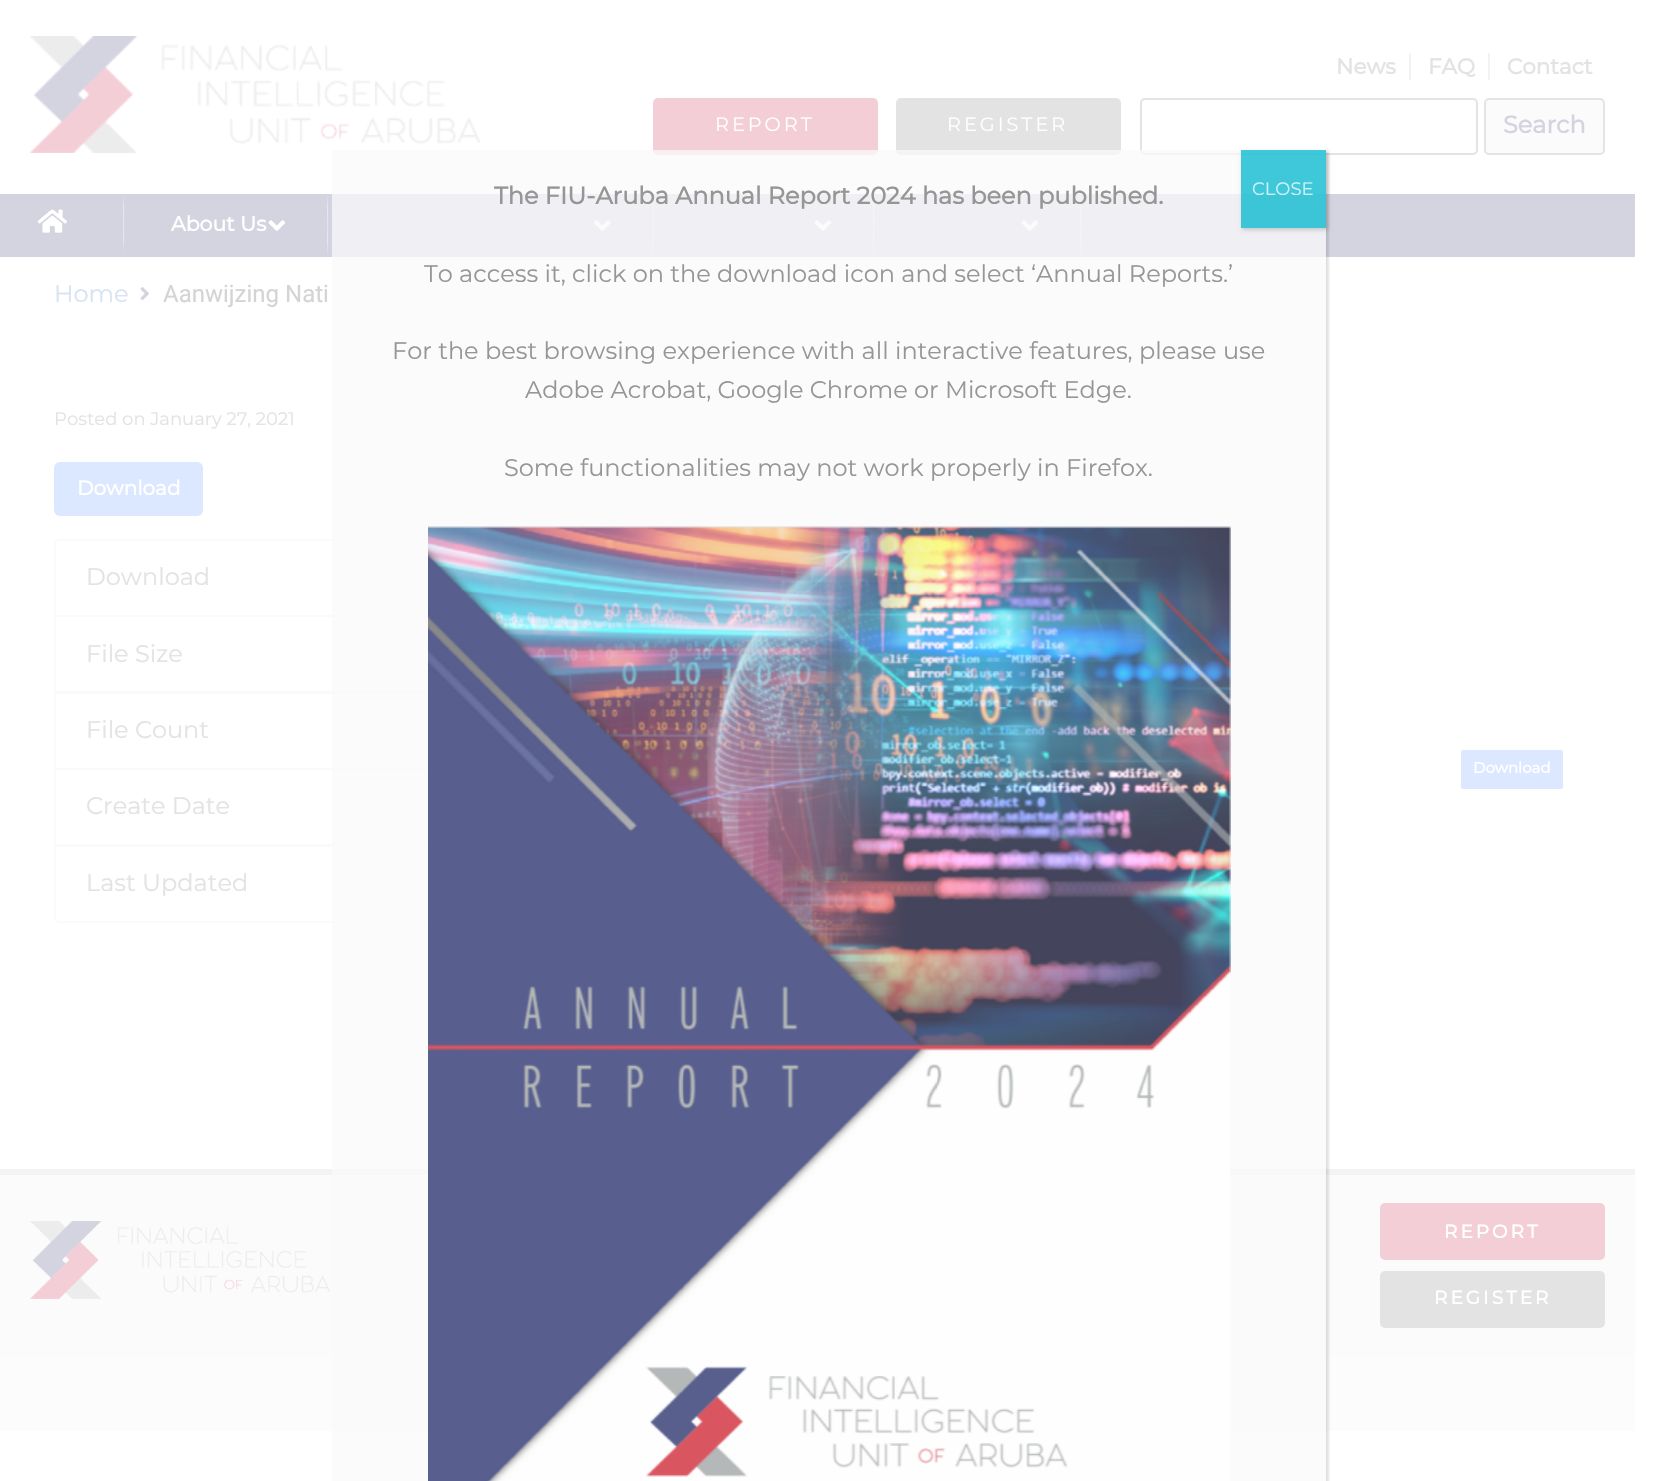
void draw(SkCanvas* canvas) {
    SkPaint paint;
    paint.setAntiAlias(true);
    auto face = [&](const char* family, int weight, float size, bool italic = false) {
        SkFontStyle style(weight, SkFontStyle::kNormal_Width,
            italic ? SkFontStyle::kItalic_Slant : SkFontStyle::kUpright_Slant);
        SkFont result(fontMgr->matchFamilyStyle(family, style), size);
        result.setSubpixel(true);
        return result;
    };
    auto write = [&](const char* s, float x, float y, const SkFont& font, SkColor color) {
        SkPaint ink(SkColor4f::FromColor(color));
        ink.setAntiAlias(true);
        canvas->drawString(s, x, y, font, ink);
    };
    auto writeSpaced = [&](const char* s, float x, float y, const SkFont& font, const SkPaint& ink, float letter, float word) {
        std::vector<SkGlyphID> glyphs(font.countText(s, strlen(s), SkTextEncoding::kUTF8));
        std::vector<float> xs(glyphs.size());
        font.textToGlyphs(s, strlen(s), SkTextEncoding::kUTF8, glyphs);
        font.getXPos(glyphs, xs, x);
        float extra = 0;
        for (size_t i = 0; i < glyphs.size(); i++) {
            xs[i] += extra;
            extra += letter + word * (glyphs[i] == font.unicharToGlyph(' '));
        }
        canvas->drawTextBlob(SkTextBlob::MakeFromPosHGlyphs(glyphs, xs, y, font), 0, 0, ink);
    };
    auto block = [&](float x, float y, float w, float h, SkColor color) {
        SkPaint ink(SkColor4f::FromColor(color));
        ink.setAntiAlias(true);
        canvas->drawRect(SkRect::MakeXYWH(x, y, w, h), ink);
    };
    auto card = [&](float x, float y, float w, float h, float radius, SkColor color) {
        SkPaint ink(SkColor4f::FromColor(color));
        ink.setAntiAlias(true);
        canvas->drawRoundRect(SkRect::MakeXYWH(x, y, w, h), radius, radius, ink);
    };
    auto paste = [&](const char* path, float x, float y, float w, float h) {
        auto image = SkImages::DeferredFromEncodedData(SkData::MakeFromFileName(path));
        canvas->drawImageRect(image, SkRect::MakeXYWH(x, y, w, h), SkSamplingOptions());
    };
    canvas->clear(SK_ColorWHITE);
    paste("pic1.png", 30, 36, 450, 117);
    auto kFont1 = face("Montserrat", 700, 21.5f);
    write("News", 1336, 74, kFont1, SkColorSetRGB(227, 227, 227));
    block(1409, 53, 2, 27, SkColorSetRGB(242, 242, 242));
    write("FAQ", 1428, 74, kFont1, SkColorSetRGB(227, 227, 227));
    block(1488, 53, 2, 27, SkColorSetRGB(242, 242, 242));
    write("Contact", 1507, 74, kFont1, SkColorSetRGB(227, 227, 227));
    card(653, 98, 225, 57, 5, SkColorSetRGB(244, 206, 214));
    auto kFont2 = face("Montserrat", 100, 19.25f);
    paint.setColor(SK_ColorWHITE);
    writeSpaced("REPORT", 715, 131, kFont2, paint, 3, 0);
    card(896, 98, 225, 57, 5, SkColorSetRGB(227, 227, 227));
    writeSpaced("REGISTER", 947, 131, kFont2, paint, 3, 0);
    paint.setStyle(SkPaint::kStroke_Style);
    paint.setStrokeWidth(2);
    paint.setColor(SkColorSetRGB(228, 228, 228));
    canvas->drawRoundRect(SkRect::MakeXYWH(1141, 99, 336, 55), 4, 4, paint);
    paint.setStyle(SkPaint::kFill_Style);
    paint.setColor(SkColorSetRGB(251, 251, 252));
    canvas->drawRoundRect(SkRect::MakeXYWH(1485, 99, 119, 55), 4, 4, paint);
    paint.setStyle(SkPaint::kStroke_Style);
    paint.setColor(SkColorSetRGB(228, 228, 228));
    canvas->drawRoundRect(SkRect::MakeXYWH(1485, 99, 119, 55), 4, 4, paint);
    auto kFont3 = face("Montserrat", 700, 24);
    write("Search", 1503, 133, kFont3, SkColorSetRGB(212, 212, 225));
    block(0, 194, 1635, 63, SkColorSetRGB(212, 212, 225));
    paste("pic2.png", 123, 194, 2, 58);
    paste("pic3.png", 37, 209, 30, 24);
    paste("pic4.png", 327, 194, 2, 63);
    auto kFont4 = face("Montserrat", 700, 20.5f);
    write("About Us", 171, 231, kFont4, SK_ColorWHITE);
    paste("pic5.png", 268, 220, 18, 11);
    paste("pic6.png", 652, 194, 2, 62);
    paste("pic7.png", 594, 220, 17, 11);
    paste("pic4.png", 873, 194, 2, 63);
    paste("pic5.png", 814, 220, 18, 11);
    paste("pic4.png", 1080, 194, 2, 63);
    paste("pic5.png", 1021, 220, 18, 11);
    auto kFont5 = face("Montserrat", 100, 24);
    write("Home", 54, 302, kFont5, SkColorSetRGB(214, 228, 241));
    paste("pic8.png", 140, 287, 9, 14);
    auto kFont6 = face("Roboto", 400, 24);
    write("Aanwijzing Nati", 163, 302, kFont6, SkColorSetRGB(212, 212, 212));
    auto kFont7 = face("Montserrat", 100, 18);
    write("Posted on January 27, 2021", 54, 425, kFont7, SkColorSetRGB(227, 227, 227));
    card(54, 462, 149, 54, 6, SkColorSetRGB(219, 232, 255));
    auto kFont8 = face("Montserrat", 700, 20);
    write("Download", 77, 495, kFont8, SK_ColorWHITE);
    paint.setColor(SkColorSetRGB(250, 250, 250));
    canvas->drawPath(SkPathBuilder().moveTo(60, 540).lineTo(659, 540).cubicTo(662, 540, 664, 542, 664, 545).lineTo(664, 616).lineTo(55, 616).lineTo(55, 545).cubicTo(55, 542, 57, 540, 60, 540).close().detach(), paint);
    write("Download", 86, 585, kFont5, SkColorSetRGB(227, 227, 227));
    canvas->drawRect(SkRect::MakeXYWH(55, 616, 609, 76), paint);
    write("File Size", 86, 662, kFont5, SkColorSetRGB(227, 227, 227));
    canvas->drawRect(SkRect::MakeXYWH(55, 693, 609, 76), paint);
    write("File Count", 86, 738, kFont5, SkColorSetRGB(227, 227, 227));
    canvas->drawRect(SkRect::MakeXYWH(55, 769, 609, 76), paint);
    write("Create Date", 86, 814, kFont5, SkColorSetRGB(227, 227, 227));
    paint.setStyle(SkPaint::kFill_Style);
    paint.setColor(SK_ColorWHITE);
    canvas->drawPath(SkPathBuilder().moveTo(55, 846).lineTo(664, 846).lineTo(664, 917).cubicTo(664, 920, 662, 922, 659, 922).lineTo(60, 922).cubicTo(57, 922, 55, 920, 55, 917).close().detach(), paint);
    paint.setStyle(SkPaint::kStroke_Style);
    paint.setColor(SkColorSetRGB(250, 250, 250));
    canvas->drawPath(SkPathBuilder().moveTo(55, 846).lineTo(664, 846).lineTo(664, 917).cubicTo(664, 920, 662, 922, 659, 922).lineTo(60, 922).cubicTo(57, 922, 55, 920, 55, 917).close().detach(), paint);
    write("Last Updated", 86, 891, kFont5, SkColorSetRGB(227, 227, 227));
    card(1461, 750, 102, 39, 2, SkColorSetRGB(219, 232, 255));
    auto kFont9 = face("Montserrat", 700, 15);
    write("Download", 1473, 773, kFont9, SK_ColorWHITE);
    block(0, 1358, 1635, 73, SkColorSetRGB(252, 252, 252));
    block(0, 1169, 1635, 6, SkColorSetRGB(243, 243, 243));
    block(0, 1175, 1635, 183, SkColorSetRGB(251, 251, 252));
    paste("pic9.png", 30, 1221, 300, 78);
    card(1380, 1203, 225, 57, 5, SkColorSetRGB(244, 206, 214));
    auto kFont10 = face("Montserrat", 700, 18.5f);
    paint.setStyle(SkPaint::kFill_Style);
    paint.setColor(SK_ColorWHITE);
    writeSpaced("REPORT", 1444, 1238, kFont10, paint, 3, 0);
    card(1380, 1271, 225, 57, 5, SkColorSetRGB(227, 227, 227));
    writeSpaced("REGISTER", 1434, 1304, kFont10, paint, 3, 0);
    canvas->save();
    canvas->clipRect(SkRect::MakeXYWH(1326, 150, 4, 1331));
    paint.setColor(SkColorSetARGB(43, 2, 2, 2));
    paint.setMaskFilter(SkMaskFilter::MakeBlur(kNormal_SkBlurStyle, 2));
    canvas->drawRect(SkRect::MakeXYWH(333, 152, 995, 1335), paint);
    paint.setMaskFilter(nullptr);
    canvas->restore();
    block(332, 150, 994, 1331, SkColorSetARGB(191, 249, 249, 249));
    write("The FIU-Aruba Annual Report 2024 has been published.", 494, 204, kFont3, SkColorSetRGB(150, 150, 150));
    write("To access it, click on the download icon and select ‘Annual Reports.’", 424, 282, kFont5, SkColorSetRGB(150, 150, 150));
    write("For the best browsing experience with all interactive features, please use", 392, 359, kFont5, SkColorSetRGB(150, 150, 150));
    write("Adobe Acrobat, Google Chrome or Microsoft Edge.", 525, 398, kFont5, SkColorSetRGB(150, 150, 150));
    write("Some functionalities may not work properly in Firefox.", 504, 476, kFont5, SkColorSetRGB(150, 150, 150));
    paste("pic10.png", 428, 526, 803, 955);
    canvas->save();
    canvas->clipPath(SkPathBuilder(SkPathFillType::kEvenOdd).moveTo(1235, 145).lineTo(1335, 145).lineTo(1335, 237).lineTo(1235, 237).close().moveTo(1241, 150).lineTo(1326, 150).lineTo(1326, 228).lineTo(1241, 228).close().detach(), true);
    paint.setMaskFilter(SkMaskFilter::MakeBlur(kNormal_SkBlurStyle, 2));
    canvas->drawRect(SkRect::MakeXYWH(1242, 152, 86, 78), paint);
    paint.setMaskFilter(nullptr);
    canvas->restore();
    block(1241, 150, 85, 78, SkColorSetARGB(191, 0, 183, 205));
    write("CLOSE", 1252, 195, kFont7, SkColorSetRGB(207, 241, 245));
}
